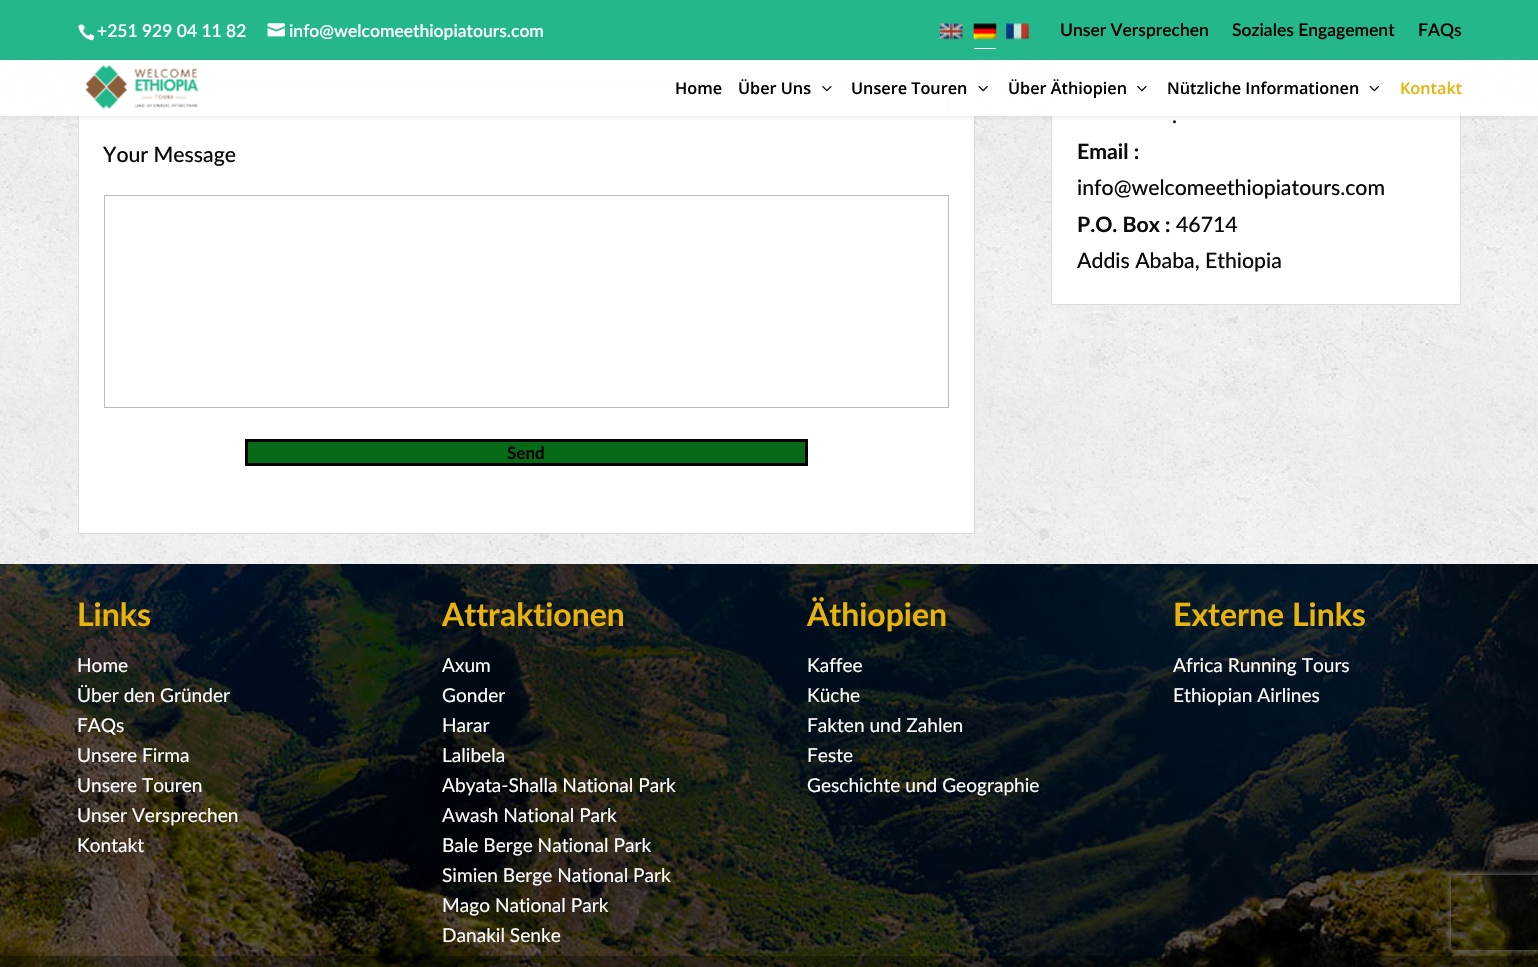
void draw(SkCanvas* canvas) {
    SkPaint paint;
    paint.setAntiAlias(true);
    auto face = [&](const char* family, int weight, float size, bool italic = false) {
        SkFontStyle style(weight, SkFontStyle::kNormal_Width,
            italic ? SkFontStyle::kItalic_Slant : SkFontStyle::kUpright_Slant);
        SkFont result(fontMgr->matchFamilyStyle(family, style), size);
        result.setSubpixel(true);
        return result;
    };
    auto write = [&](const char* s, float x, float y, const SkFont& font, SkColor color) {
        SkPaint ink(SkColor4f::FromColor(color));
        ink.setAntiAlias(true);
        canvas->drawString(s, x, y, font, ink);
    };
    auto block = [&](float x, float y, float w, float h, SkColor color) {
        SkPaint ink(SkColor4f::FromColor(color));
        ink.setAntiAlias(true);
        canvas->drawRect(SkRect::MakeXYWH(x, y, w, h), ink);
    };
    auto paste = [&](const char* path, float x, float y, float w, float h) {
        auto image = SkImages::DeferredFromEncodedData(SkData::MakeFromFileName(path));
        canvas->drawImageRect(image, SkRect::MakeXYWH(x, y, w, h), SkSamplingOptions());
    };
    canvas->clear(SK_ColorWHITE);
    paste("pic1.png", 0, 60, 1538, 504);
    block(79, 60, 895, 473, SK_ColorWHITE);
    paint.setStyle(SkPaint::kStroke_Style);
    paint.setStrokeWidth(1);
    paint.setColor(SkColorSetRGB(220, 220, 220));
    canvas->drawRect(SkRect::MakeXYWH(78.5f, -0.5f, 896, 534), paint);
    paint.setColor(SkColorSetRGB(187, 187, 187));
    canvas->drawRect(SkRect::MakeXYWH(104.5f, 85.5f, 844, 27), paint);
    block(1052, 60, 408, 244, SK_ColorWHITE);
    paint.setColor(SkColorSetRGB(220, 220, 220));
    canvas->drawRect(SkRect::MakeXYWH(1051.5f, -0.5f, 409, 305), paint);
    canvas->save();
    canvas->clipRect(SkRect::MakeXYWH(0, 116, 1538, 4));
    paint.setStyle(SkPaint::kFill_Style);
    paint.setColor(SkColorSetARGB(26, 0, 0, 0));
    paint.setMaskFilter(SkMaskFilter::MakeBlur(kNormal_SkBlurStyle, 4.5f));
    canvas->drawRect(SkRect::MakeXYWH(0, 60, 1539, 56), paint);
    paint.setMaskFilter(nullptr);
    canvas->restore();
    block(0, 0, 1538, 60, SkColorSetRGB(35, 183, 139));
    paste("pic2.png", 78, 24, 17, 17);
    auto kFont1 = face("Lato", 600, 17.5f);
    write("+251 929 04 11 82", 97, 37, kFont1, SK_ColorWHITE);
    paste("pic3.png", 267, 23, 18, 14);
    write("info@welcomeethiopiatours.com", 289, 37, kFont1, SK_ColorWHITE);
    paste("pic4.png", 940, 23, 23, 17);
    paste("pic5.png", 973, 23, 24, 17);
    paste("pic6.png", 1006, 23, 23, 17);
    block(974, 48, 22, 1, SK_ColorWHITE);
    write("Unser Versprechen", 1060, 36, kFont1, SK_ColorBLACK);
    write("Soziales Engagement", 1232, 36, kFont1, SK_ColorBLACK);
    write("FAQs", 1418, 36, kFont1, SK_ColorBLACK);
    block(0, 60, 1538, 56, SkColorSetARGB(242, 255, 255, 255));
    paste("pic7.png", 85, 65, 114, 44);
    auto kFont2 = face("Open Sans", 600, 16.25f);
    write("Home", 675, 94, kFont2, SK_ColorBLACK);
    write("Über Uns", 738, 94, kFont2, SK_ColorBLACK);
    paste("pic8.png", 822, 86, 10, 6);
    write("Unsere Touren", 851, 94, kFont2, SK_ColorBLACK);
    paste("pic9.png", 978, 86, 10, 6);
    write("Über Äthiopien", 1008, 94, kFont2, SK_ColorBLACK);
    paste("pic10.png", 1137, 86, 10, 6);
    write("Nützliche Informationen", 1167, 94, kFont2, SK_ColorBLACK);
    paste("pic11.png", 1369, 86, 10, 6);
    write("Kontakt", 1400, 94, kFont2, SkColorSetRGB(232, 179, 12));
    auto kFont3 = face("Lato", 500, 21.25f);
    write("Your Message", 103, 162, kFont3, SkColorSetRGB(10, 10, 10));
    paint.setStyle(SkPaint::kStroke_Style);
    paint.setColor(SkColorSetRGB(187, 187, 187));
    canvas->drawRect(SkRect::MakeXYWH(104.5f, 195.5f, 844, 212), paint);
    paint.setStyle(SkPaint::kFill_Style);
    paint.setColor(SkColorSetRGB(6, 106, 22));
    canvas->drawRect(SkRect::MakeXYWH(246.5f, 440.5f, 560, 24), paint);
    paint.setStyle(SkPaint::kStroke_Style);
    paint.setStrokeWidth(3);
    paint.setColor(SK_ColorBLACK);
    canvas->drawRect(SkRect::MakeXYWH(246.5f, 440.5f, 560, 24), paint);
    auto kFont4 = face("Lato", 700, 17);
    write("Send", 507, 459, kFont4, SK_ColorBLACK);
    write(".", 1172, 123, kFont3, SkColorSetRGB(10, 10, 10));
    auto kFont5 = face("Lato", 700, 21.25f);
    write("Email :", 1077, 159, kFont5, SkColorSetRGB(10, 10, 10));
    write("info@welcomeethiopiatours.com", 1077, 195, kFont3, SkColorSetRGB(10, 10, 10));
    write("P.O. Box :", 1077, 232, kFont5, SkColorSetRGB(10, 10, 10));
    write("46714", 1176, 232, kFont3, SkColorSetRGB(10, 10, 10));
    write("Addis Ababa, Ethiopia", 1077, 268, kFont3, SkColorSetRGB(10, 10, 10));
    paste("pic12.png", 0, 564, 1538, 403);
    auto kFont6 = face("Lato", 700, 32);
    write("Links", 77, 626, kFont6, SkColorSetRGB(232, 179, 12));
    auto kFont7 = face("Lato", 400, 19.1f);
    write("Home", 77, 672, kFont7, SK_ColorWHITE);
    write("Über den Gründer", 77, 702, kFont7, SK_ColorWHITE);
    write("FAQs", 77, 732, kFont7, SK_ColorWHITE);
    write("Unsere Firma", 77, 762, kFont7, SK_ColorWHITE);
    write("Unsere Touren", 77, 792, kFont7, SK_ColorWHITE);
    write("Unser Versprechen", 77, 822, kFont7, SK_ColorWHITE);
    write("Kontakt", 77, 852, kFont7, SK_ColorWHITE);
    write("Attraktionen", 442, 626, kFont6, SkColorSetRGB(232, 179, 12));
    write("Axum", 442, 672, kFont7, SK_ColorWHITE);
    write("Gonder", 442, 702, kFont7, SK_ColorWHITE);
    write("Harar", 442, 732, kFont7, SK_ColorWHITE);
    write("Lalibela", 442, 762, kFont7, SK_ColorWHITE);
    write("Abyata-Shalla National Park", 442, 792, kFont7, SK_ColorWHITE);
    write("Awash National Park", 442, 822, kFont7, SK_ColorWHITE);
    write("Bale Berge National Park", 442, 852, kFont7, SK_ColorWHITE);
    write("Simien Berge National Park", 442, 882, kFont7, SK_ColorWHITE);
    write("Mago National Park", 442, 912, kFont7, SK_ColorWHITE);
    write("Danakil Senke", 442, 942, kFont7, SK_ColorWHITE);
    write("Äthiopien", 807, 626, kFont6, SkColorSetRGB(232, 179, 12));
    write("Kaffee", 807, 672, kFont7, SK_ColorWHITE);
    write("Küche", 807, 702, kFont7, SK_ColorWHITE);
    write("Fakten und Zahlen", 807, 732, kFont7, SK_ColorWHITE);
    write("Feste", 807, 762, kFont7, SK_ColorWHITE);
    write("Geschichte und Geographie", 807, 792, kFont7, SK_ColorWHITE);
    write("Externe Links", 1173, 626, kFont6, SkColorSetRGB(232, 179, 12));
    write("Africa Running Tours", 1173, 672, kFont7, SK_ColorWHITE);
    write("Ethiopian Airlines", 1173, 702, kFont7, SK_ColorWHITE);
    block(0, 956, 1538, 11, SkColorSetARGB(82, 0, 0, 0));
    canvas->save();
    canvas->clipPath(SkPathBuilder(SkPathFillType::kEvenOdd).moveTo(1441, 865).lineTo(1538, 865).lineTo(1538, 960).lineTo(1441, 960).close().moveTo(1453.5f, 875).lineTo(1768.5f, 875).cubicTo(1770, 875, 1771, 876, 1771, 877.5f).lineTo(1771, 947.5f).cubicTo(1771, 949, 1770, 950, 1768.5f, 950).lineTo(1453.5f, 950).cubicTo(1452, 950, 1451, 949, 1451, 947.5f).lineTo(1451, 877.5f).cubicTo(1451, 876, 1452, 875, 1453.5f, 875).close().detach(), true);
    paint.setStyle(SkPaint::kFill_Style);
    paint.setColor(SkColorSetRGB(128, 128, 128));
    paint.setMaskFilter(SkMaskFilter::MakeBlur(kNormal_SkBlurStyle, 3));
    canvas->drawRoundRect(SkRect::MakeXYWH(1451, 875, 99, 75), 2.5f, 2.5f, paint);
    paint.setMaskFilter(nullptr);
    canvas->restore();
}
